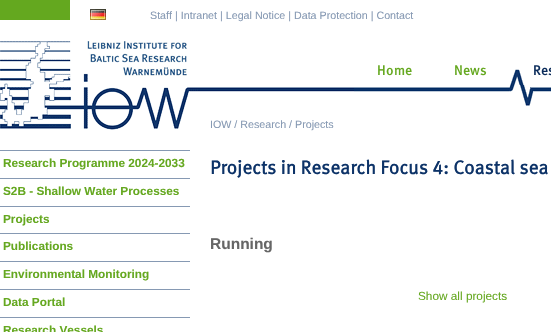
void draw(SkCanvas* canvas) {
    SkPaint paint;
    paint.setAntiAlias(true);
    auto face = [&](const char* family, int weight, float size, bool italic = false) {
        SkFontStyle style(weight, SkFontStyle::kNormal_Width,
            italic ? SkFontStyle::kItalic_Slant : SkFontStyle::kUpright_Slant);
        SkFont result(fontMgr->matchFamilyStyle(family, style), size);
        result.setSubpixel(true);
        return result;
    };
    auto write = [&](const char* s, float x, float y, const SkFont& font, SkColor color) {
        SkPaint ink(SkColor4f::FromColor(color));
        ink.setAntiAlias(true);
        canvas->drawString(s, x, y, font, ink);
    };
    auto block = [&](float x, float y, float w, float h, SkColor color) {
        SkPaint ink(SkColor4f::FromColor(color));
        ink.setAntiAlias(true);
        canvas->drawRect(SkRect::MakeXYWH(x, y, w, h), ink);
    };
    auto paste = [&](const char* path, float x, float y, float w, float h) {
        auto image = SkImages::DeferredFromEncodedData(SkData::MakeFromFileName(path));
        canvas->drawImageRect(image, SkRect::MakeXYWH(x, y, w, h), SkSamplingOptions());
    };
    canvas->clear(SK_ColorWHITE);
    paste("pic1.png", 0, 0, 551, 130);
    paste("pic2.png", 90, 9, 16, 11);
    auto kFont1 = face("Liberation Sans", 400, 10.7f);
    write("Staff | Intranet | Legal Notice | Data Protection | Contact", 150, 19, kFont1, SkColorSetRGB(134, 153, 179));
    block(354, 87, 197, 5, SK_ColorWHITE);
    paste("pic3.png", 354, 65, 67, 27);
    paste("pic4.png", 421, 65, 88, 27);
    paste("pic5.png", 509, 65, 42, 41);
    write("IOW / Research / Projects", 210, 128, kFont1, SkColorSetRGB(134, 153, 179));
    block(0, 150, 190, 1, SkColorSetRGB(134, 153, 179));
    auto kFont2 = face("Liberation Sans", 700, 11.8f);
    write("Research Programme 2024-2033", 3, 167, kFont2, SkColorSetRGB(101, 168, 32));
    block(0, 178, 190, 1, SkColorSetRGB(134, 153, 179));
    write("S2B - Shallow Water Processes", 3, 195, kFont2, SkColorSetRGB(101, 168, 32));
    block(0, 206, 190, 1, SkColorSetRGB(134, 153, 179));
    write("Projects", 3, 223, kFont2, SkColorSetRGB(101, 168, 32));
    block(0, 233, 190, 1, SkColorSetRGB(134, 153, 179));
    write("Publications", 3, 250, kFont2, SkColorSetRGB(101, 168, 32));
    block(0, 261, 190, 1, SkColorSetRGB(134, 153, 179));
    write("Environmental Monitoring", 3, 278, kFont2, SkColorSetRGB(101, 168, 32));
    block(0, 289, 190, 1, SkColorSetRGB(134, 153, 179));
    write("Data Portal", 3, 306, kFont2, SkColorSetRGB(101, 168, 32));
    block(0, 317, 190, 1, SkColorSetRGB(134, 153, 179));
    write("Research Vessels", 3, 334, kFont2, SkColorSetRGB(101, 168, 32));
    auto kFont3 = face("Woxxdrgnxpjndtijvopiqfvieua", 700, 19);
    write("Projects in Research Focus 4: Coastal sea", 210, 174, kFont3, SkColorSetRGB(13, 51, 104));
    auto kFont4 = face("Liberation Sans", 700, 15.5f);
    write("Running", 210, 249, kFont4, SkColorSetRGB(102, 102, 102));
    auto kFont5 = face("Liberation Sans", 400, 11.8f);
    write("Show all projects", 418, 300, kFont5, SkColorSetRGB(101, 168, 32));
}
